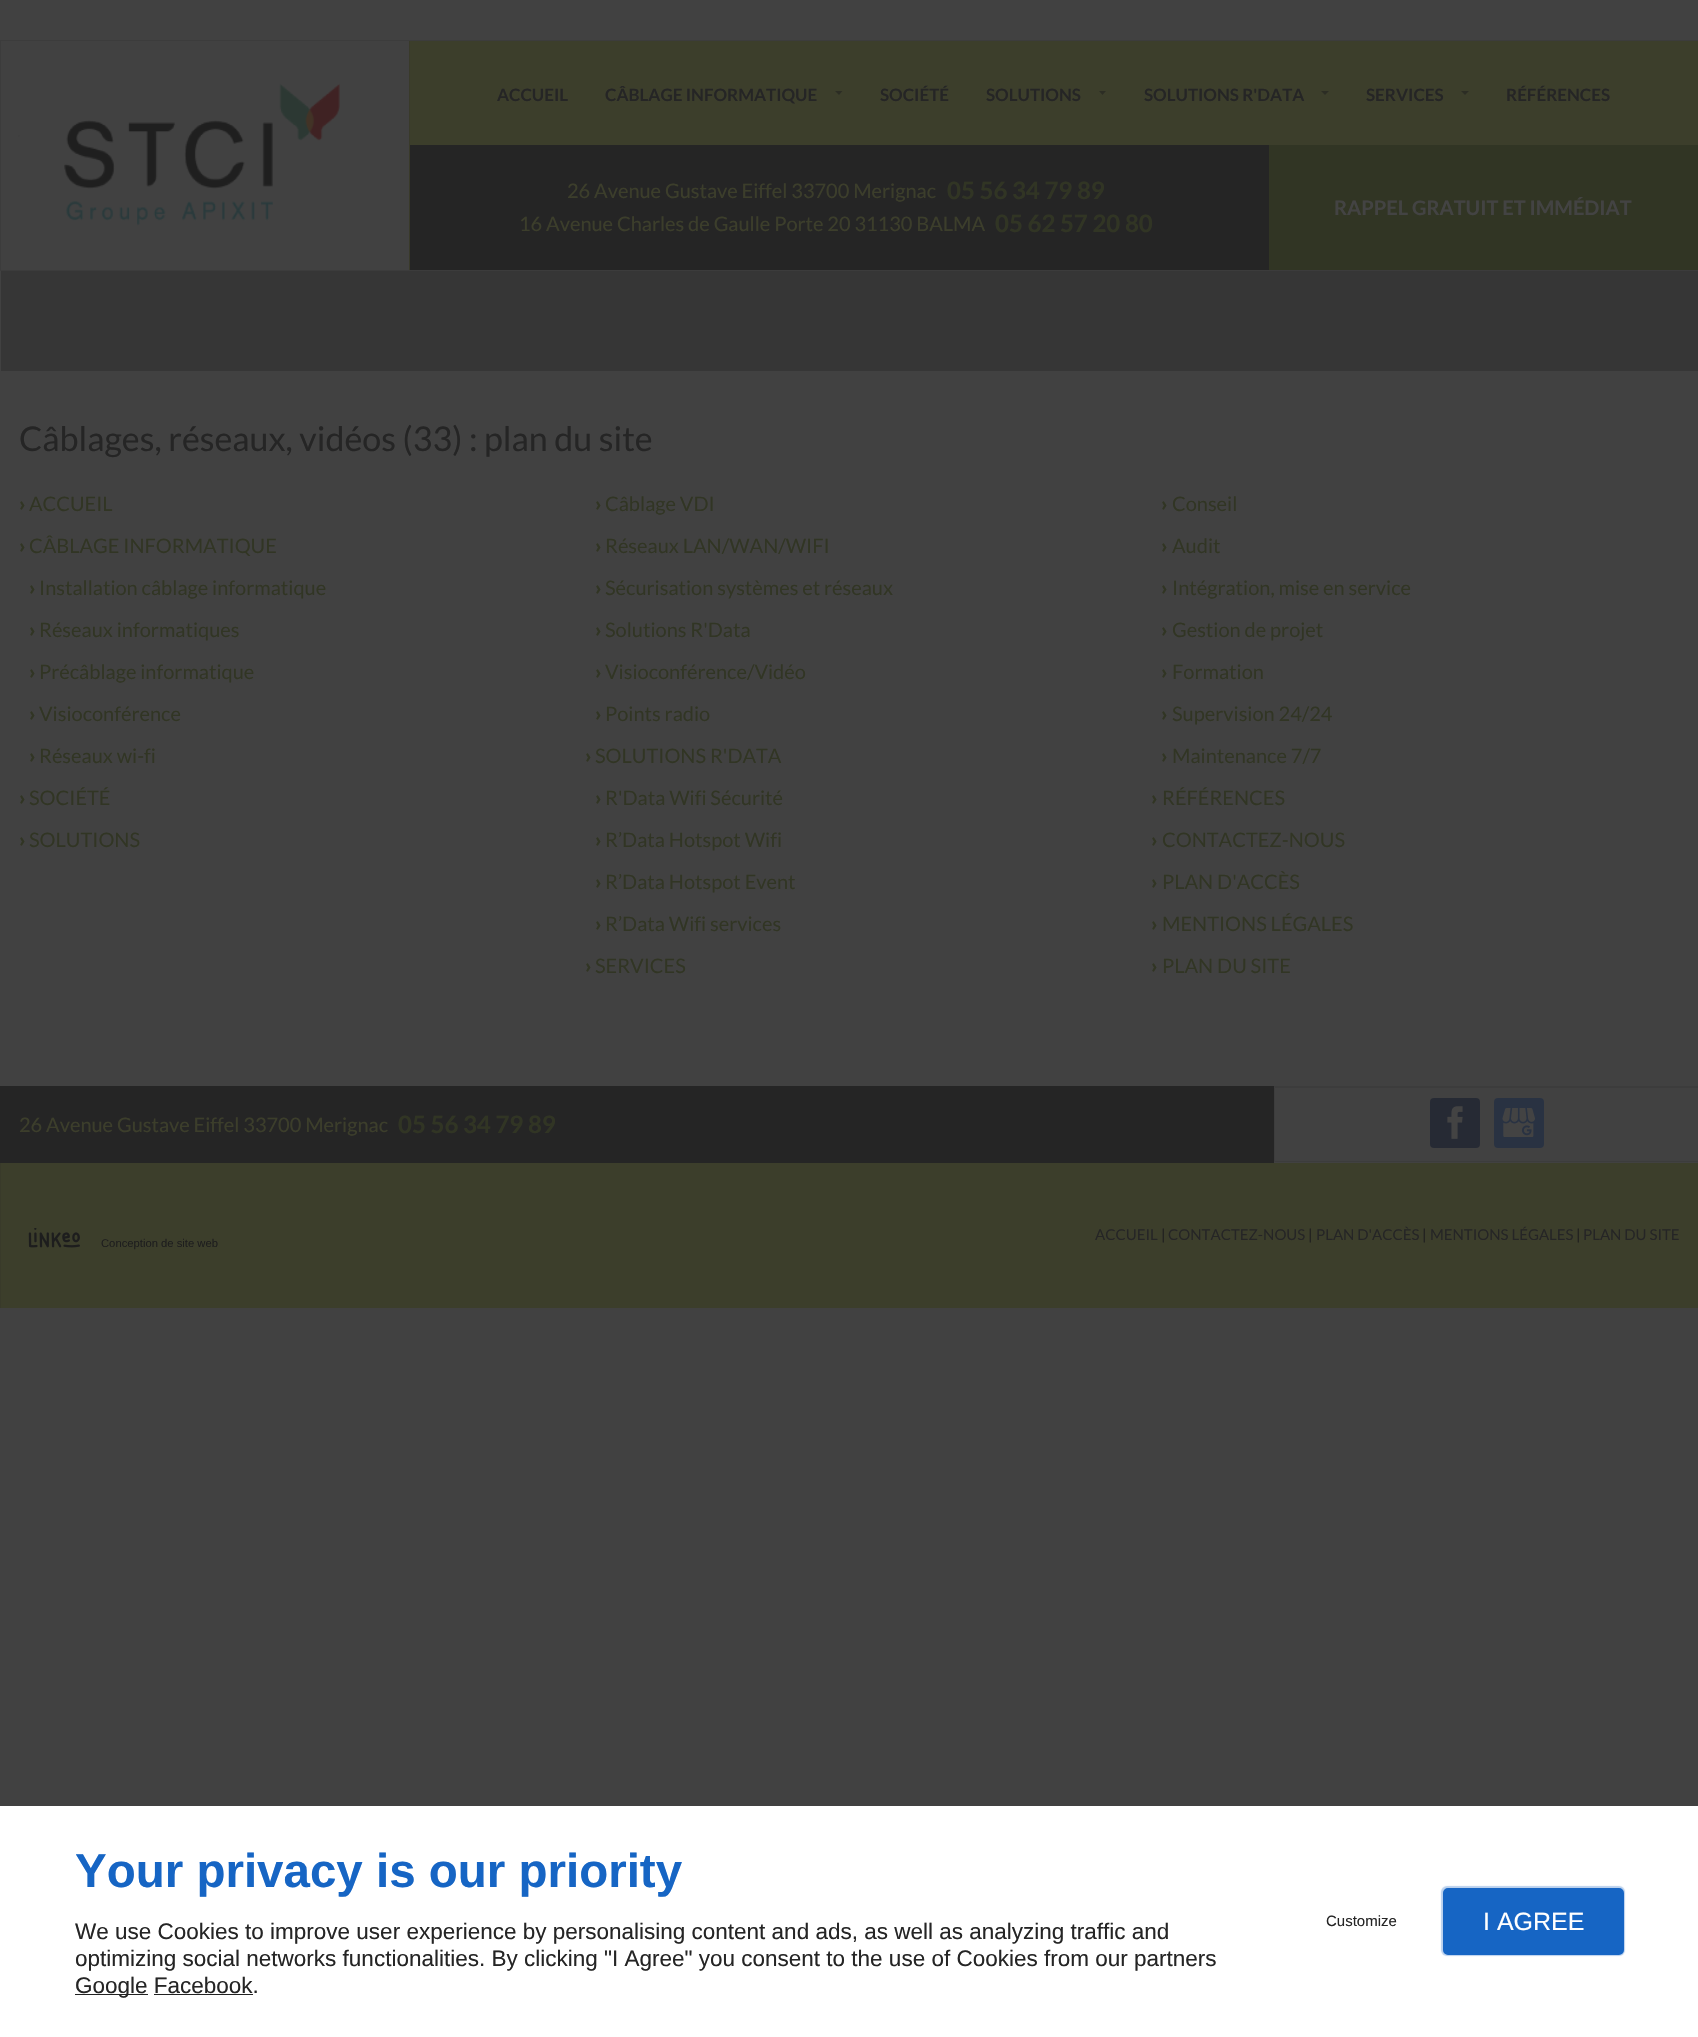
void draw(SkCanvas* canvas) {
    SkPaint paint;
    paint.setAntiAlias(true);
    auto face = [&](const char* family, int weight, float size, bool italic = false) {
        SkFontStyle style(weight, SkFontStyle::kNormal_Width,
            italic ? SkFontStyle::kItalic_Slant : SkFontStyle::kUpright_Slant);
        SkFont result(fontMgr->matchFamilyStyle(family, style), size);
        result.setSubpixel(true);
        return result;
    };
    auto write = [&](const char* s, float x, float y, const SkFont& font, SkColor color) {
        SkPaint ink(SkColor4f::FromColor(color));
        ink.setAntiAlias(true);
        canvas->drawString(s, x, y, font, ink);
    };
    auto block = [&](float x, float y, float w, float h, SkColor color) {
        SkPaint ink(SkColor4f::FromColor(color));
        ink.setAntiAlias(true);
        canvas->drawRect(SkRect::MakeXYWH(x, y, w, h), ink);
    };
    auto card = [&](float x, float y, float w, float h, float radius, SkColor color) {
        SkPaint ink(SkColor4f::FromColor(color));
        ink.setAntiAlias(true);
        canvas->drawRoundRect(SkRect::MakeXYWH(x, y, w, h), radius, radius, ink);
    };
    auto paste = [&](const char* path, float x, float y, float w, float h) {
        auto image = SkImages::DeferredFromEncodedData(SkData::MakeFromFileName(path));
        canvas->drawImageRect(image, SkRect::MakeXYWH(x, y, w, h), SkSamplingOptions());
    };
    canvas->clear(SkColorSetRGB(65, 65, 65));
    paint.setStyle(SkPaint::kStroke_Style);
    paint.setStrokeWidth(1);
    paint.setColor(SkColorSetRGB(60, 60, 60));
    canvas->drawRect(SkRect::MakeXYWH(0.5f, 40.5f, 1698, 230), paint);
    paste("pic1.png", 18, 83, 322, 143);
    block(410, 41, 1288, 104, SkColorSetRGB(60, 62, 43));
    block(409, 41, 1, 229, SkColorSetRGB(57, 58, 42));
    auto kFont1 = face("Lato", 700, 17);
    write("ACCUEIL", 497, 101, kFont1, SkColorSetRGB(37, 37, 37));
    write("CÂBLAGE INFORMATIQUE", 605, 101, kFont1, SkColorSetRGB(37, 37, 37));
    paint.setStyle(SkPaint::kFill_Style);
    paint.setColor(SkColorSetRGB(44, 45, 36));
    canvas->drawPath(SkPathBuilder().moveTo(835, 91).lineTo(842.5f, 91).lineTo(839, 95).close().detach(), paint);
    write("SOCIÉTÉ", 880, 101, kFont1, SkColorSetRGB(37, 37, 37));
    write("SOLUTIONS", 986, 101, kFont1, SkColorSetRGB(37, 37, 37));
    canvas->drawPath(SkPathBuilder().moveTo(1099, 91).lineTo(1106, 91).lineTo(1102.5f, 95).close().detach(), paint);
    write("SOLUTIONS R'DATA", 1144, 101, kFont1, SkColorSetRGB(37, 37, 37));
    canvas->drawPath(SkPathBuilder().moveTo(1321, 91).lineTo(1329, 91).lineTo(1325, 95).close().detach(), paint);
    write("SERVICES", 1366, 101, kFont1, SkColorSetRGB(37, 37, 37));
    canvas->drawPath(SkPathBuilder().moveTo(1461, 91).lineTo(1469, 91).lineTo(1465, 95).close().detach(), paint);
    write("RÉFÉRENCES", 1506, 101, kFont1, SkColorSetRGB(37, 37, 37));
    block(410, 145, 859, 125, SkColorSetRGB(37, 37, 37));
    auto kFont2 = face("Lato", 400, 20);
    write("26 Avenue Gustave Eiffel 33700 Merignac", 567, 198, kFont2, SkColorSetRGB(60, 62, 43));
    auto kFont3 = face("Lato", 700, 24);
    write("05 56 34 79 89", 947, 199, kFont3, SkColorSetRGB(49, 53, 36));
    write("16 Avenue Charles de Gaulle Porte 20 31130 BALMA", 519, 231, kFont2, SkColorSetRGB(60, 62, 43));
    write("05 62 57 20 80", 995, 232, kFont3, SkColorSetRGB(49, 53, 36));
    block(1269, 145, 429, 125, SkColorSetRGB(49, 53, 36));
    auto kFont4 = face("Lato", 700, 20);
    write("RAPPEL GRATUIT ET IMMÉDIAT", 1334, 215, kFont4, SkColorSetRGB(67, 67, 67));
    block(1, 271, 1697, 100, SkColorSetRGB(54, 54, 54));
    auto kFont5 = face("Lato", 400, 34);
    write("Câblages, réseaux, vidéos (33) : plan du site", 19, 451, kFont5, SkColorSetRGB(37, 37, 37));
    auto kFont6 = face("Lato", 900, 20);
    write("›", 19, 511, kFont6, SkColorSetRGB(49, 53, 36));
    write("ACCUEIL", 29, 511, kFont2, SkColorSetRGB(49, 53, 36));
    write("›", 595, 511, kFont6, SkColorSetRGB(49, 53, 36));
    write("Câblage VDI", 605, 511, kFont2, SkColorSetRGB(49, 53, 36));
    write("›", 595, 553, kFont6, SkColorSetRGB(49, 53, 36));
    write("Réseaux LAN/WAN/WIFI", 605, 553, kFont2, SkColorSetRGB(49, 53, 36));
    write("›", 595, 595, kFont6, SkColorSetRGB(49, 53, 36));
    write("Sécurisation systèmes et réseaux", 605, 595, kFont2, SkColorSetRGB(49, 53, 36));
    write("›", 595, 637, kFont6, SkColorSetRGB(49, 53, 36));
    write("Solutions R'Data", 605, 637, kFont2, SkColorSetRGB(49, 53, 36));
    write("›", 595, 679, kFont6, SkColorSetRGB(49, 53, 36));
    write("Visioconférence/Vidéo", 605, 679, kFont2, SkColorSetRGB(49, 53, 36));
    write("›", 595, 721, kFont6, SkColorSetRGB(49, 53, 36));
    write("Points radio", 605, 721, kFont2, SkColorSetRGB(49, 53, 36));
    write("›", 19, 847, kFont6, SkColorSetRGB(49, 53, 36));
    write("SOLUTIONS", 29, 847, kFont2, SkColorSetRGB(49, 53, 36));
    write("›", 1161, 511, kFont6, SkColorSetRGB(49, 53, 36));
    write("Conseil", 1172, 511, kFont2, SkColorSetRGB(49, 53, 36));
    write("›", 1161, 553, kFont6, SkColorSetRGB(49, 53, 36));
    write("Audit", 1172, 553, kFont2, SkColorSetRGB(49, 53, 36));
    write("›", 1161, 595, kFont6, SkColorSetRGB(49, 53, 36));
    write("Intégration, mise en service", 1172, 595, kFont2, SkColorSetRGB(49, 53, 36));
    write("›", 1161, 637, kFont6, SkColorSetRGB(49, 53, 36));
    write("Gestion de projet", 1172, 637, kFont2, SkColorSetRGB(49, 53, 36));
    write("›", 1161, 679, kFont6, SkColorSetRGB(49, 53, 36));
    write("Formation", 1172, 679, kFont2, SkColorSetRGB(49, 53, 36));
    write("›", 1161, 721, kFont6, SkColorSetRGB(49, 53, 36));
    write("Supervision 24/24", 1172, 721, kFont2, SkColorSetRGB(49, 53, 36));
    write("›", 1161, 763, kFont6, SkColorSetRGB(49, 53, 36));
    write("Maintenance 7/7", 1172, 763, kFont2, SkColorSetRGB(49, 53, 36));
    write("›", 585, 973, kFont6, SkColorSetRGB(49, 53, 36));
    write("SERVICES", 595, 973, kFont2, SkColorSetRGB(49, 53, 36));
    write("›", 19, 553, kFont6, SkColorSetRGB(49, 53, 36));
    write("CÂBLAGE INFORMATIQUE", 29, 553, kFont2, SkColorSetRGB(49, 53, 36));
    write("›", 29, 595, kFont6, SkColorSetRGB(49, 53, 36));
    write("Installation câblage informatique", 39, 595, kFont2, SkColorSetRGB(49, 53, 36));
    write("›", 29, 637, kFont6, SkColorSetRGB(49, 53, 36));
    write("Réseaux informatiques", 39, 637, kFont2, SkColorSetRGB(49, 53, 36));
    write("›", 29, 679, kFont6, SkColorSetRGB(49, 53, 36));
    write("Précâblage informatique", 39, 679, kFont2, SkColorSetRGB(49, 53, 36));
    write("›", 29, 721, kFont6, SkColorSetRGB(49, 53, 36));
    write("Visioconférence", 39, 721, kFont2, SkColorSetRGB(49, 53, 36));
    write("›", 29, 763, kFont6, SkColorSetRGB(49, 53, 36));
    write("Réseaux wi-fi", 39, 763, kFont2, SkColorSetRGB(49, 53, 36));
    write("›", 19, 805, kFont6, SkColorSetRGB(49, 53, 36));
    write("SOCIÉTÉ", 29, 805, kFont2, SkColorSetRGB(49, 53, 36));
    write("›", 585, 763, kFont6, SkColorSetRGB(49, 53, 36));
    write("SOLUTIONS R'DATA", 595, 763, kFont2, SkColorSetRGB(49, 53, 36));
    write("›", 595, 805, kFont6, SkColorSetRGB(49, 53, 36));
    write("R'Data Wifi Sécurité", 605, 805, kFont2, SkColorSetRGB(49, 53, 36));
    write("›", 595, 847, kFont6, SkColorSetRGB(49, 53, 36));
    write("R’Data Hotspot Wifi", 605, 847, kFont2, SkColorSetRGB(49, 53, 36));
    write("›", 595, 889, kFont6, SkColorSetRGB(49, 53, 36));
    write("R’Data Hotspot Event", 605, 889, kFont2, SkColorSetRGB(49, 53, 36));
    write("›", 595, 931, kFont6, SkColorSetRGB(49, 53, 36));
    write("R’Data Wifi services", 605, 931, kFont2, SkColorSetRGB(49, 53, 36));
    write("›", 1151, 805, kFont6, SkColorSetRGB(49, 53, 36));
    write("RÉFÉRENCES", 1162, 805, kFont2, SkColorSetRGB(49, 53, 36));
    write("›", 1151, 847, kFont6, SkColorSetRGB(49, 53, 36));
    write("CONTACTEZ-NOUS", 1162, 847, kFont2, SkColorSetRGB(49, 53, 36));
    write("›", 1151, 889, kFont6, SkColorSetRGB(49, 53, 36));
    write("PLAN D'ACCÈS", 1162, 889, kFont2, SkColorSetRGB(49, 53, 36));
    write("›", 1151, 931, kFont6, SkColorSetRGB(49, 53, 36));
    write("MENTIONS LÉGALES", 1162, 931, kFont2, SkColorSetRGB(49, 53, 36));
    write("›", 1151, 973, kFont6, SkColorSetRGB(49, 53, 36));
    write("PLAN DU SITE", 1162, 973, kFont2, SkColorSetRGB(49, 53, 36));
    block(0, 1086, 1274, 77, SkColorSetRGB(37, 37, 37));
    write("26 Avenue Gustave Eiffel 33700 Merignac", 19, 1132, kFont2, SkColorSetRGB(60, 62, 43));
    write("05 56 34 79 89", 398, 1133, kFont3, SkColorSetRGB(49, 53, 36));
    paint.setColor(SkColorSetRGB(60, 60, 60));
    canvas->drawPath(SkPathBuilder().moveTo(1274, 1086).lineTo(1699, 1086).lineTo(1698, 1088).lineTo(1275, 1088).close().detach(), paint);
    canvas->drawPath(SkPathBuilder().moveTo(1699, 1162).lineTo(1274, 1162).lineTo(1275, 1161).lineTo(1698, 1161).close().detach(), paint);
    paint.setColor(SkColorSetARGB(26, 29, 29, 29));
    canvas->drawPath(SkPathBuilder().moveTo(1274, 1162).lineTo(1274, 1086).lineTo(1275, 1088).lineTo(1275, 1161).close().detach(), paint);
    card(1430, 1098, 50, 50, 4, SkColorSetRGB(38, 42, 52));
    paste("pic2.png", 1447, 1106, 16, 33);
    card(1494, 1098, 50, 50, 4, SkColorSetRGB(41, 50, 66));
    paste("pic3.png", 1502, 1108, 33, 29);
    block(1, 1163, 1697, 145, SkColorSetRGB(60, 62, 43));
    block(0, 1163, 1, 145, SkColorSetRGB(57, 58, 42));
    paste("pic4.png", 28, 1228, 52, 20);
    auto kFont7 = face("Liberation Sans", 400, 11.25f);
    write("Conception de site web", 101, 1247, kFont7, SkColorSetRGB(29, 29, 29));
    auto kFont8 = face("Lato", 400, 15);
    write("ACCUEIL", 1095, 1240, kFont8, SkColorSetRGB(37, 37, 37));
    write("|", 1161, 1240, kFont8, SkColorSetRGB(29, 29, 29));
    write("CONTACTEZ-NOUS", 1168, 1240, kFont8, SkColorSetRGB(37, 37, 37));
    write("|", 1308, 1240, kFont8, SkColorSetRGB(29, 29, 29));
    write("PLAN D'ACCÈS", 1316, 1240, kFont8, SkColorSetRGB(37, 37, 37));
    write("|", 1422, 1240, kFont8, SkColorSetRGB(29, 29, 29));
    write("MENTIONS LÉGALES", 1430, 1240, kFont8, SkColorSetRGB(37, 37, 37));
    write("|", 1576, 1240, kFont8, SkColorSetRGB(29, 29, 29));
    write("PLAN DU SITE", 1583, 1240, kFont8, SkColorSetRGB(37, 37, 37));
    block(0, 1806, 1698, 231, SK_ColorWHITE);
    auto kFont9 = face("Liberation Sans", 700, 47.5f);
    write("Your privacy is our priority", 75, 1887, kFont9, SkColorSetRGB(22, 101, 196));
    auto kFont10 = face("Liberation Sans", 400, 22.5f);
    write("We use Cookies to improve user experience by personalising content and ads, as well as analyzing traffic and", 75, 1939, kFont10, SkColorSetRGB(37, 37, 37));
    write("optimizing social networks functionalities. By clicking \"I Agree\" you consent to the use of Cookies from our partners", 75, 1966, kFont10, SkColorSetRGB(37, 37, 37));
    block(75, 1994, 73, 1, SkColorSetRGB(34, 34, 34));
    write("Google Facebook.", 75, 1993, kFont10, SkColorSetRGB(37, 37, 37));
    block(154, 1994, 99, 1, SkColorSetRGB(34, 34, 34));
    auto kFont11 = face("Liberation Sans", 400, 15);
    write("Customize", 1326, 1926, kFont11, SkColorSetRGB(37, 37, 37));
    paint.setColor(SkColorSetARGB(77, 22, 101, 196));
    paint.setMaskFilter(SkMaskFilter::MakeBlur(kNormal_SkBlurStyle, 0.5f));
    canvas->drawRoundRect(SkRect::MakeXYWH(1441, 1886, 184, 70), 6, 6, paint);
    paint.setMaskFilter(nullptr);
    paint.setColor(SkColorSetRGB(22, 101, 196));
    canvas->drawRoundRect(SkRect::MakeXYWH(1444.5f, 1889.5f, 178, 64), 3.5f, 3.5f, paint);
    paint.setStyle(SkPaint::kStroke_Style);
    paint.setStrokeWidth(3);
    canvas->drawRoundRect(SkRect::MakeXYWH(1444.5f, 1889.5f, 178, 64), 3.5f, 3.5f, paint);
    auto kFont12 = face("Liberation Sans", 400, 25);
    write("I AGREE", 1483, 1930, kFont12, SK_ColorWHITE);
}
